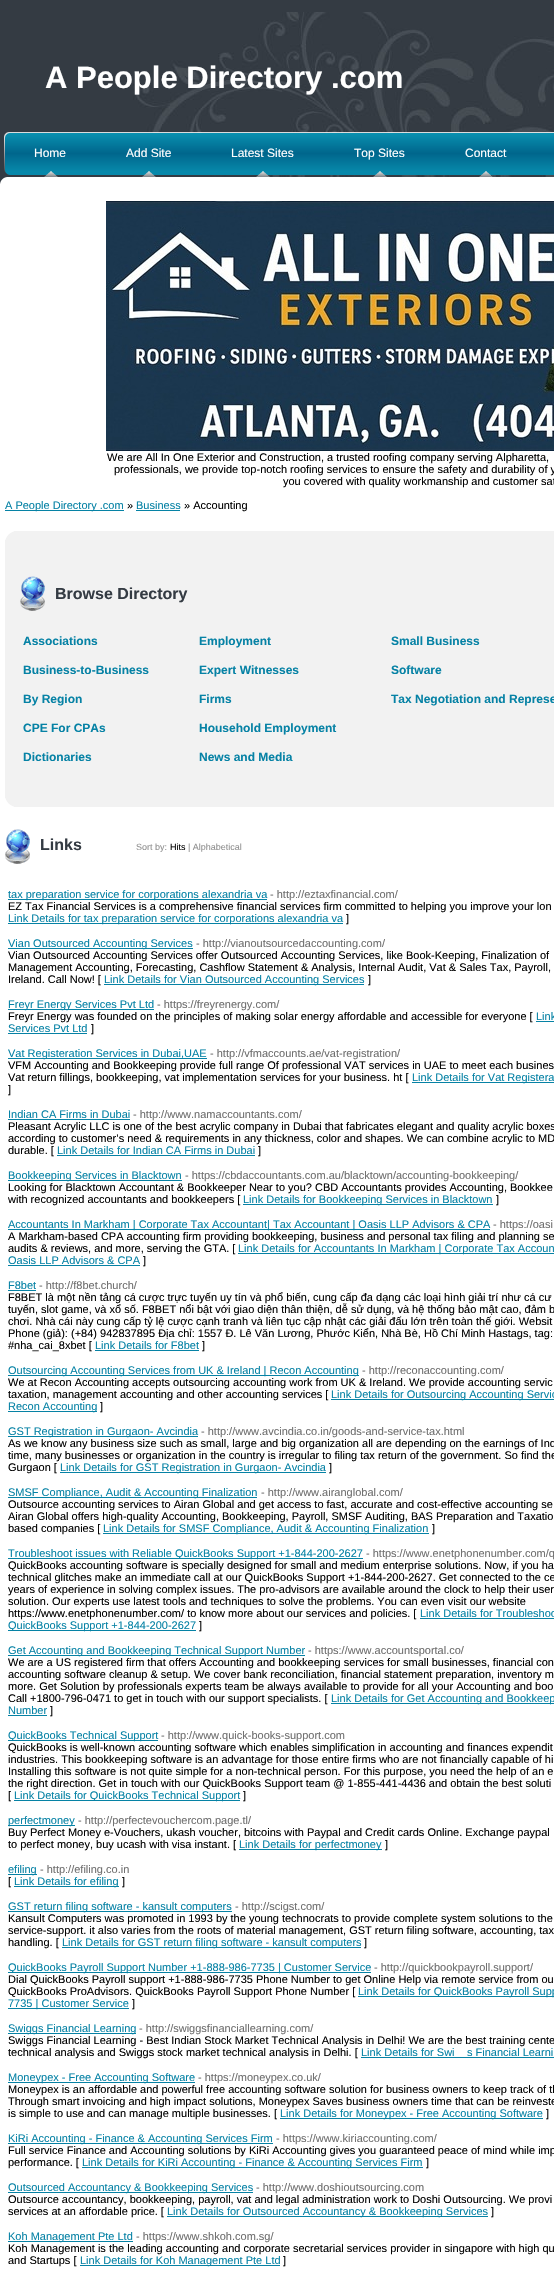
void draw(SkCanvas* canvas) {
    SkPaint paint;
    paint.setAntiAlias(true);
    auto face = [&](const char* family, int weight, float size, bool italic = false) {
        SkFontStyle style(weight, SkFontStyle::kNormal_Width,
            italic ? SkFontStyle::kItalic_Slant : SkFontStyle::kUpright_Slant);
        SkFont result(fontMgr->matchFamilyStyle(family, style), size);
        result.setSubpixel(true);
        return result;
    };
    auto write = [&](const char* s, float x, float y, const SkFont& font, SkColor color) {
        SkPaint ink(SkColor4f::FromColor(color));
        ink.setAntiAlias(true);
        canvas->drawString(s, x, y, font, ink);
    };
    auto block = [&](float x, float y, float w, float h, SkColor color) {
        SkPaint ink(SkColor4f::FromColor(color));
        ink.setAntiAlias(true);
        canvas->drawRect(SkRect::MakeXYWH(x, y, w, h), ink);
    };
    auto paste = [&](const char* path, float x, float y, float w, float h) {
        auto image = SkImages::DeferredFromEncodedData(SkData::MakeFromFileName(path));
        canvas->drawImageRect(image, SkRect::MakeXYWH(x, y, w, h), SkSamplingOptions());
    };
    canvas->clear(SkColorSetRGB(52, 59, 67));
    paste("pic1.png", 133, 12, 421, 165);
    auto kFont1 = face("Liberation Sans", 700, 31);
    write("A People Directory .com", 45, 88, kFont1, SK_ColorWHITE);
    paste("pic2.png", 4, 132, 550, 43);
    paste("pic3.png", 44, 171, 14, 6);
    auto kFont2 = face("Liberation Sans", 400, 12);
    write("Home", 34, 157, kFont2, SK_ColorWHITE);
    paste("pic3.png", 142, 171, 14, 6);
    write("Add Site", 126, 157, kFont2, SK_ColorWHITE);
    paste("pic4.png", 256, 171, 14, 6);
    write("Latest Sites", 231, 157, kFont2, SK_ColorWHITE);
    paste("pic3.png", 373, 171, 14, 6);
    write("Top Sites", 354, 157, kFont2, SK_ColorWHITE);
    paste("pic5.png", 479, 171, 14, 6);
    write("Contact", 465, 157, kFont2, SK_ColorWHITE);
    block(0, 177, 554, 2097, SK_ColorWHITE);
    paste("pic6.png", 0, 177, 7, 7);
    paste("pic7.png", 106, 201, 448, 250);
    auto kFont3 = face("Liberation Sans", 400, 11);
    write("We are All In One Exterior and Construction, a trusted roofing company serving Alpharetta,", 107, 461, kFont3, SK_ColorBLACK);
    write("professionals, we provide top-notch roofing services to ensure the safety and durability of y", 114, 473, kFont3, SK_ColorBLACK);
    write("you covered with quality workmanship and customer sat", 283, 485, kFont3, SK_ColorBLACK);
    block(5, 510, 119, 1, SkColorSetRGB(6, 130, 165));
    write("A People Directory .com", 5, 509, kFont3, SkColorSetRGB(6, 130, 165));
    write("»", 127, 509, kFont3, SK_ColorBLACK);
    write("Business", 136, 509, kFont3, SkColorSetRGB(6, 130, 165));
    block(136, 510, 44, 1, SkColorSetRGB(6, 130, 165));
    write("» Accounting", 184, 509, kFont3, SK_ColorBLACK);
    block(5, 531, 549, 276, SkColorSetRGB(242, 242, 242));
    paste("pic8.png", 5, 798, 9, 9);
    paste("pic9.png", 5, 531, 9, 9);
    paste("pic10.png", 20, 576, 25, 35);
    auto kFont4 = face("Liberation Sans", 700, 16);
    write("Browse Directory", 55, 599, kFont4, SkColorSetRGB(52, 59, 67));
    auto kFont5 = face("Liberation Sans", 700, 12);
    write("Associations", 23, 645, kFont5, SkColorSetRGB(6, 130, 165));
    write("Business-to-Business", 23, 674, kFont5, SkColorSetRGB(6, 130, 165));
    write("By Region", 23, 703, kFont5, SkColorSetRGB(6, 130, 165));
    write("CPE For CPAs", 23, 732, kFont5, SkColorSetRGB(6, 130, 165));
    write("Dictionaries", 23, 761, kFont5, SkColorSetRGB(6, 130, 165));
    write("Employment", 199, 645, kFont5, SkColorSetRGB(6, 130, 165));
    write("Expert Witnesses", 199, 674, kFont5, SkColorSetRGB(6, 130, 165));
    write("Firms", 199, 703, kFont5, SkColorSetRGB(6, 130, 165));
    write("Household Employment", 199, 732, kFont5, SkColorSetRGB(6, 130, 165));
    write("News and Media", 199, 761, kFont5, SkColorSetRGB(6, 130, 165));
    write("Small Business", 391, 645, kFont5, SkColorSetRGB(6, 130, 165));
    write("Software", 391, 674, kFont5, SkColorSetRGB(6, 130, 165));
    write("Tax Negotiation and Represe", 391, 703, kFont5, SkColorSetRGB(6, 130, 165));
    paste("pic11.png", 5, 829, 25, 35);
    write("Links", 40, 850, kFont4, SkColorSetRGB(52, 59, 67));
    auto kFont6 = face("Liberation Sans", 400, 9);
    write("Sort by:", 136, 850, kFont6, SkColorSetRGB(144, 144, 144));
    write("Hits", 170, 850, kFont6, SK_ColorBLACK);
    write("| Alphabetical", 188, 850, kFont6, SkColorSetRGB(144, 144, 144));
    block(8, 899, 259, 1, SkColorSetRGB(6, 130, 165));
    write("tax preparation service for corporations alexandria va", 8, 898, kFont3, SkColorSetRGB(6, 130, 165));
    write("- http://eztaxfinancial.com/", 270, 898, kFont3, SkColorSetRGB(111, 111, 111));
    write("EZ Tax Financial Services is a comprehensive financial services firm committed to helping you improve your lon", 8, 910, kFont3, SK_ColorBLACK);
    block(8, 923, 335, 1, SkColorSetRGB(6, 130, 165));
    write("Link Details for tax preparation service for corporations alexandria va", 8, 922, kFont3, SkColorSetRGB(6, 130, 165));
    write("]", 346, 922, kFont3, SK_ColorBLACK);
    block(8, 948, 185, 1, SkColorSetRGB(6, 130, 165));
    write("Vian Outsourced Accounting Services", 8, 947, kFont3, SkColorSetRGB(6, 130, 165));
    write("- http://vianoutsourcedaccounting.com/", 196, 947, kFont3, SkColorSetRGB(111, 111, 111));
    write("Vian Outsourced Accounting Services offer Outsourced Accounting Services, like Book-Keeping, Finalization of", 8, 959, kFont3, SK_ColorBLACK);
    write("Management Accounting, Forecasting, Cashflow Statement & Analysis, Internal Audit, Vat & Sales Tax, Payroll,", 8, 971, kFont3, SK_ColorBLACK);
    write("Ireland. Call Now! [", 8, 983, kFont3, SK_ColorBLACK);
    block(104, 984, 260, 1, SkColorSetRGB(6, 130, 165));
    write("Link Details for Vian Outsourced Accounting Services", 104, 983, kFont3, SkColorSetRGB(6, 130, 165));
    write("]", 368, 983, kFont3, SK_ColorBLACK);
    block(8, 1009, 146, 1, SkColorSetRGB(6, 130, 165));
    write("Freyr Energy Services Pvt Ltd", 8, 1008, kFont3, SkColorSetRGB(6, 130, 165));
    write("- https://freyrenergy.com/", 157, 1008, kFont3, SkColorSetRGB(111, 111, 111));
    write("Freyr Energy was founded on the principles of making solar energy affordable and accessible for everyone [", 8, 1020, kFont3, SK_ColorBLACK);
    write("Link", 536, 1020, kFont3, SkColorSetRGB(6, 130, 165));
    block(536, 1021, 18, 1, SkColorSetRGB(6, 130, 165));
    write("Services Pvt Ltd", 8, 1032, kFont3, SkColorSetRGB(6, 130, 165));
    block(8, 1033, 79, 1, SkColorSetRGB(6, 130, 165));
    write("]", 91, 1032, kFont3, SK_ColorBLACK);
    block(8, 1058, 199, 1, SkColorSetRGB(6, 130, 165));
    write("Vat Registeration Services in Dubai,UAE", 8, 1057, kFont3, SkColorSetRGB(6, 130, 165));
    write("- http://vfmaccounts.ae/vat-registration/", 210, 1057, kFont3, SkColorSetRGB(111, 111, 111));
    write("VFM Accounting and Bookkeeping provide full range Of professional VAT services in UAE to meet each busines", 8, 1069, kFont3, SK_ColorBLACK);
    write("Vat return fillings, bookkeeping, vat implementation services for your business. ht [", 8, 1081, kFont3, SK_ColorBLACK);
    block(412, 1082, 142, 1, SkColorSetRGB(6, 130, 165));
    write("Link Details for Vat Registera", 412, 1081, kFont3, SkColorSetRGB(6, 130, 165));
    write("]", 8, 1093, kFont3, SK_ColorBLACK);
    write("Indian CA Firms in Dubai", 8, 1118, kFont3, SkColorSetRGB(6, 130, 165));
    block(8, 1119, 122, 1, SkColorSetRGB(6, 130, 165));
    write("- http://www.namaccountants.com/", 133, 1118, kFont3, SkColorSetRGB(111, 111, 111));
    write("Pleasant Acrylic LLC is one of the best acrylic company in Dubai that fabricates elegant and quality acrylic boxes", 8, 1130, kFont3, SK_ColorBLACK);
    write("according to customer’s need & requirements in any thickness, color and shapes. We can combine acrylic to MD", 8, 1142, kFont3, SK_ColorBLACK);
    write("durable. [", 8, 1154, kFont3, SK_ColorBLACK);
    write("Link Details for Indian CA Firms in Dubai", 57, 1154, kFont3, SkColorSetRGB(6, 130, 165));
    block(57, 1155, 198, 1, SkColorSetRGB(6, 130, 165));
    write("]", 258, 1154, kFont3, SK_ColorBLACK);
    block(8, 1180, 174, 1, SkColorSetRGB(6, 130, 165));
    write("Bookkeeping Services in Blacktown", 8, 1179, kFont3, SkColorSetRGB(6, 130, 165));
    write("- https://cbdaccountants.com.au/blacktown/accounting-bookkeeping/", 185, 1179, kFont3, SkColorSetRGB(111, 111, 111));
    write("Looking for Blacktown Accountant & Bookkeeper Near to you? CBD Accountants provides Accounting, Bookkee", 8, 1191, kFont3, SK_ColorBLACK);
    write("with recognized accountants and bookkeepers [", 8, 1203, kFont3, SK_ColorBLACK);
    block(243, 1204, 250, 1, SkColorSetRGB(6, 130, 165));
    write("Link Details for Bookkeeping Services in Blacktown", 243, 1203, kFont3, SkColorSetRGB(6, 130, 165));
    write("]", 496, 1203, kFont3, SK_ColorBLACK);
    block(8, 1229, 482, 1, SkColorSetRGB(6, 130, 165));
    write("Accountants In Markham | Corporate Tax Accountant| Tax Accountant | Oasis LLP Advisors & CPA", 8, 1228, kFont3, SkColorSetRGB(6, 130, 165));
    write("- https://oasi", 493, 1228, kFont3, SkColorSetRGB(111, 111, 111));
    write("A Markham-based CPA accounting firm providing bookkeeping, business and personal tax filing and planning se", 8, 1240, kFont3, SK_ColorBLACK);
    write("audits & reviews, and more, serving the GTA. [", 8, 1252, kFont3, SK_ColorBLACK);
    block(238, 1253, 316, 1, SkColorSetRGB(6, 130, 165));
    write("Link Details for Accountants In Markham | Corporate Tax Accoun", 238, 1252, kFont3, SkColorSetRGB(6, 130, 165));
    write("Oasis LLP Advisors & CPA", 8, 1264, kFont3, SkColorSetRGB(6, 130, 165));
    block(8, 1265, 132, 1, SkColorSetRGB(6, 130, 165));
    write("]", 143, 1264, kFont3, SK_ColorBLACK);
    write("F8bet", 8, 1289, kFont3, SkColorSetRGB(6, 130, 165));
    block(8, 1290, 28, 1, SkColorSetRGB(6, 130, 165));
    write("- http://f8bet.church/", 39, 1289, kFont3, SkColorSetRGB(111, 111, 111));
    write("F8BET là một nền tảng cá cược trực tuyến uy tín và phổ biến, cung cấp đa dạng các loại hình giải trí như cá cư", 8, 1301, kFont3, SK_ColorBLACK);
    write("tuyến, slot game, và xổ số. F8BET nổi bật với giao diện thân thiện, dễ sử dụng, và hệ thống bảo mật cao, đảm b", 8, 1313, kFont3, SK_ColorBLACK);
    write("chơi. Nhà cái này cung cấp tỷ lệ cược cạnh tranh và liên tục cập nhật các giải đấu lớn trên toàn thế giới. Websit", 8, 1325, kFont3, SK_ColorBLACK);
    write("Phone (giả): (+84) 942837895 Địa chỉ: 1557 Đ. Lê Văn Lương, Phước Kiển, Nhà Bè, Hồ Chí Minh Hastags, tag:", 8, 1337, kFont3, SK_ColorBLACK);
    write("#nha_cai_8xbet [", 8, 1349, kFont3, SK_ColorBLACK);
    write("Link Details for F8bet", 95, 1349, kFont3, SkColorSetRGB(6, 130, 165));
    block(95, 1350, 104, 1, SkColorSetRGB(6, 130, 165));
    write("]", 202, 1349, kFont3, SK_ColorBLACK);
    block(8, 1375, 351, 1, SkColorSetRGB(6, 130, 165));
    write("Outsourcing Accounting Services from UK & Ireland | Recon Accounting", 8, 1374, kFont3, SkColorSetRGB(6, 130, 165));
    write("- http://reconaccounting.com/", 362, 1374, kFont3, SkColorSetRGB(111, 111, 111));
    write("We at Recon Accounting accepts outsourcing accounting work from UK & Ireland. We provide accounting servic", 8, 1386, kFont3, SK_ColorBLACK);
    write("taxation, management accounting and other accounting services [", 8, 1398, kFont3, SK_ColorBLACK);
    block(331, 1399, 223, 1, SkColorSetRGB(6, 130, 165));
    write("Link Details for Outsourcing Accounting Servic", 331, 1398, kFont3, SkColorSetRGB(6, 130, 165));
    block(8, 1411, 89, 1, SkColorSetRGB(6, 130, 165));
    write("Recon Accounting", 8, 1410, kFont3, SkColorSetRGB(6, 130, 165));
    write("]", 100, 1410, kFont3, SK_ColorBLACK);
    block(8, 1436, 190, 1, SkColorSetRGB(6, 130, 165));
    write("GST Registration in Gurgaon- Avcindia", 8, 1435, kFont3, SkColorSetRGB(6, 130, 165));
    write("- http://www.avcindia.co.in/goods-and-service-tax.html", 201, 1435, kFont3, SkColorSetRGB(111, 111, 111));
    write("As we know any business size such as small, large and big organization all are depending on the earnings of Ind", 8, 1447, kFont3, SK_ColorBLACK);
    write("time, many businesses or organization in the country is irregular to filing tax return of the government. So find the", 8, 1459, kFont3, SK_ColorBLACK);
    write("Gurgaon [", 8, 1471, kFont3, SK_ColorBLACK);
    block(60, 1472, 266, 1, SkColorSetRGB(6, 130, 165));
    write("Link Details for GST Registration in Gurgaon- Avcindia", 60, 1471, kFont3, SkColorSetRGB(6, 130, 165));
    write("]", 329, 1471, kFont3, SK_ColorBLACK);
    block(8, 1497, 249, 1, SkColorSetRGB(6, 130, 165));
    write("SMSF Compliance, Audit & Accounting Finalization", 8, 1496, kFont3, SkColorSetRGB(6, 130, 165));
    write("- http://www.airanglobal.com/", 261, 1496, kFont3, SkColorSetRGB(111, 111, 111));
    write("Outsource accounting services to Airan Global and get access to fast, accurate and cost-effective accounting se", 8, 1508, kFont3, SK_ColorBLACK);
    write("Airan Global offers high-quality Accounting, Bookkeeping, Payroll, SMSF Auditing, BAS Preparation and Taxatio", 8, 1520, kFont3, SK_ColorBLACK);
    write("based companies [", 8, 1532, kFont3, SK_ColorBLACK);
    block(103, 1533, 326, 1, SkColorSetRGB(6, 130, 165));
    write("Link Details for SMSF Compliance, Audit & Accounting Finalization", 103, 1532, kFont3, SkColorSetRGB(6, 130, 165));
    write("]", 432, 1532, kFont3, SK_ColorBLACK);
    block(8, 1558, 355, 1, SkColorSetRGB(6, 130, 165));
    write("Troubleshoot issues with Reliable QuickBooks Support +1-844-200-2627", 8, 1557, kFont3, SkColorSetRGB(6, 130, 165));
    write("- https://www.enetphonenumber.com/q", 366, 1557, kFont3, SkColorSetRGB(111, 111, 111));
    write("QuickBooks accounting software is specially designed for small and medium enterprise solutions. Now, if you ha", 8, 1569, kFont3, SK_ColorBLACK);
    write("technical glitches make an immediate call at our QuickBooks Support +1-844-200-2627. Get connected to the ce", 8, 1581, kFont3, SK_ColorBLACK);
    write("years of experience in solving complex issues. The pro-advisors are available around the clock to help their user", 8, 1593, kFont3, SK_ColorBLACK);
    write("solution. Our experts use latest tools and techniques to solve the problems. You can even visit our website", 8, 1605, kFont3, SK_ColorBLACK);
    write("https://www.enetphonenumber.com/ to know more about our services and policies. [", 8, 1617, kFont3, SK_ColorBLACK);
    write("Link Details for Troubleshoo", 420, 1617, kFont3, SkColorSetRGB(6, 130, 165));
    block(420, 1618, 134, 1, SkColorSetRGB(6, 130, 165));
    block(8, 1630, 188, 1, SkColorSetRGB(6, 130, 165));
    write("QuickBooks Support +1-844-200-2627", 8, 1629, kFont3, SkColorSetRGB(6, 130, 165));
    write("]", 199, 1629, kFont3, SK_ColorBLACK);
    block(8, 1655, 297, 1, SkColorSetRGB(6, 130, 165));
    write("Get Accounting and Bookkeeping Technical Support Number", 8, 1654, kFont3, SkColorSetRGB(6, 130, 165));
    write("- https://www.accountsportal.co/", 308, 1654, kFont3, SkColorSetRGB(111, 111, 111));
    write("We are a US registered firm that offers Accounting and bookkeeping services for small businesses, financial con", 8, 1666, kFont3, SK_ColorBLACK);
    write("accounting software cleanup & setup. We cover bank reconciliation, financial statement preparation, inventory m", 8, 1678, kFont3, SK_ColorBLACK);
    write("more. Get Solution by professionals experts team be always available to provide for all your Accounting and boo", 8, 1690, kFont3, SK_ColorBLACK);
    write("Call +1800-796-0471 to get in touch with our support specialists. [", 8, 1702, kFont3, SK_ColorBLACK);
    block(331, 1703, 223, 1, SkColorSetRGB(6, 130, 165));
    write("Link Details for Get Accounting and Bookkeep", 331, 1702, kFont3, SkColorSetRGB(6, 130, 165));
    write("Number", 8, 1714, kFont3, SkColorSetRGB(6, 130, 165));
    block(8, 1715, 39, 1, SkColorSetRGB(6, 130, 165));
    write("]", 50, 1714, kFont3, SK_ColorBLACK);
    block(8, 1740, 150, 1, SkColorSetRGB(6, 130, 165));
    write("QuickBooks Technical Support", 8, 1739, kFont3, SkColorSetRGB(6, 130, 165));
    write("- http://www.quick-books-support.com", 161, 1739, kFont3, SkColorSetRGB(111, 111, 111));
    write("QuickBooks is well-known accounting software which enables simplification in accounting and finances expendit", 8, 1751, kFont3, SK_ColorBLACK);
    write("industries. This bookkeeping software is an advantage for those entire firms who are not financially capable of hi", 8, 1763, kFont3, SK_ColorBLACK);
    write("Installing this software is not quite simple for a non-technical person. For this purpose, you need the help of an e", 8, 1775, kFont3, SK_ColorBLACK);
    write("the right direction. Get in touch with our QuickBooks Support team @ 1-855-441-4436 and obtain the best soluti", 8, 1787, kFont3, SK_ColorBLACK);
    write("[", 8, 1799, kFont3, SK_ColorBLACK);
    block(14, 1800, 226, 1, SkColorSetRGB(6, 130, 165));
    write("Link Details for QuickBooks Technical Support", 14, 1799, kFont3, SkColorSetRGB(6, 130, 165));
    write("]", 243, 1799, kFont3, SK_ColorBLACK);
    block(8, 1825, 67, 1, SkColorSetRGB(6, 130, 165));
    write("perfectmoney", 8, 1824, kFont3, SkColorSetRGB(6, 130, 165));
    write("- http://perfectevouchercom.page.tl/", 78, 1824, kFont3, SkColorSetRGB(111, 111, 111));
    write("Buy Perfect Money e-Vouchers, ukash voucher, bitcoins with Paypal and Credit cards Online. Exchange paypal", 8, 1836, kFont3, SK_ColorBLACK);
    write("to perfect money, buy ucash with visa instant. [", 8, 1848, kFont3, SK_ColorBLACK);
    block(239, 1849, 143, 1, SkColorSetRGB(6, 130, 165));
    write("Link Details for perfectmoney", 239, 1848, kFont3, SkColorSetRGB(6, 130, 165));
    write("]", 385, 1848, kFont3, SK_ColorBLACK);
    block(8, 1874, 29, 1, SkColorSetRGB(6, 130, 165));
    write("efiling", 8, 1873, kFont3, SkColorSetRGB(6, 130, 165));
    write("- http://efiling.co.in", 40, 1873, kFont3, SkColorSetRGB(111, 111, 111));
    write("[", 8, 1885, kFont3, SK_ColorBLACK);
    block(14, 1886, 105, 1, SkColorSetRGB(6, 130, 165));
    write("Link Details for efiling", 14, 1885, kFont3, SkColorSetRGB(6, 130, 165));
    write("]", 122, 1885, kFont3, SK_ColorBLACK);
    block(8, 1911, 224, 1, SkColorSetRGB(6, 130, 165));
    write("GST return filing software - kansult computers", 8, 1910, kFont3, SkColorSetRGB(6, 130, 165));
    write("- http://scigst.com/", 235, 1910, kFont3, SkColorSetRGB(111, 111, 111));
    write("Kansult Computers was promoted in 1993 by the young technocrats to provide complete system solutions to the", 8, 1922, kFont3, SK_ColorBLACK);
    write("service-support. it also varies from the roots of material management, GST return filing software, accounting, tax", 8, 1934, kFont3, SK_ColorBLACK);
    write("handling. [", 8, 1946, kFont3, SK_ColorBLACK);
    block(62, 1947, 299, 1, SkColorSetRGB(6, 130, 165));
    write("Link Details for GST return filing software - kansult computers", 62, 1946, kFont3, SkColorSetRGB(6, 130, 165));
    write("]", 364, 1946, kFont3, SK_ColorBLACK);
    block(8, 1972, 363, 1, SkColorSetRGB(6, 130, 165));
    write("QuickBooks Payroll Support Number +1-888-986-7735 | Customer Service", 8, 1971, kFont3, SkColorSetRGB(6, 130, 165));
    write("- http://quickbookpayroll.support/", 374, 1971, kFont3, SkColorSetRGB(111, 111, 111));
    write("Dial QuickBooks Payroll support +1-888-986-7735 Phone Number to get Online Help via remote service from ou", 8, 1983, kFont3, SK_ColorBLACK);
    write("QuickBooks ProAdvisors. QuickBooks Payroll Support Phone Number [", 8, 1995, kFont3, SK_ColorBLACK);
    block(358, 1996, 196, 1, SkColorSetRGB(6, 130, 165));
    write("Link Details for QuickBooks Payroll Supp", 358, 1995, kFont3, SkColorSetRGB(6, 130, 165));
    block(8, 2008, 121, 1, SkColorSetRGB(6, 130, 165));
    write("7735 | Customer Service", 8, 2007, kFont3, SkColorSetRGB(6, 130, 165));
    write("]", 132, 2007, kFont3, SK_ColorBLACK);
    block(8, 2033, 128, 1, SkColorSetRGB(6, 130, 165));
    write("Swiggs Financial Learning", 8, 2032, kFont3, SkColorSetRGB(6, 130, 165));
    write("- http://swiggsfinanciallearning.com/", 139, 2032, kFont3, SkColorSetRGB(111, 111, 111));
    write("Swiggs Financial Learning - Best Indian Stock Market Technical Analysis in Delhi! We are the best training cente", 8, 2044, kFont3, SK_ColorBLACK);
    write("technical analysis and Swiggs stock market technical analysis in Delhi. [", 8, 2056, kFont3, SK_ColorBLACK);
    write("Link Details for Swi", 361, 2056, kFont3, SkColorSetRGB(6, 130, 165));
    block(361, 2057, 193, 1, SkColorSetRGB(6, 130, 165));
    write("s Financial Learni", 467, 2056, kFont3, SkColorSetRGB(6, 130, 165));
    block(8, 2082, 187, 1, SkColorSetRGB(6, 130, 165));
    write("Moneypex - Free Accounting Software", 8, 2081, kFont3, SkColorSetRGB(6, 130, 165));
    write("- https://moneypex.co.uk/", 198, 2081, kFont3, SkColorSetRGB(111, 111, 111));
    write("Moneypex is an affordable and powerful free accounting software solution for business owners to keep track of th", 8, 2093, kFont3, SK_ColorBLACK);
    write("Through smart invoicing and high impact solutions, Moneypex Saves business owners time that can be reinveste", 8, 2105, kFont3, SK_ColorBLACK);
    write("is simple to use and can manage multiple businesses. [", 8, 2117, kFont3, SK_ColorBLACK);
    block(280, 2118, 263, 1, SkColorSetRGB(6, 130, 165));
    write("Link Details for Moneypex - Free Accounting Software", 280, 2117, kFont3, SkColorSetRGB(6, 130, 165));
    write("]", 546, 2117, kFont3, SK_ColorBLACK);
    block(8, 2143, 265, 1, SkColorSetRGB(6, 130, 165));
    write("KiRi Accounting - Finance & Accounting Services Firm", 8, 2142, kFont3, SkColorSetRGB(6, 130, 165));
    write("- https://www.kiriaccounting.com/", 276, 2142, kFont3, SkColorSetRGB(111, 111, 111));
    write("Full service Finance and Accounting solutions by KiRi Accounting gives you guaranteed peace of mind while imp", 8, 2154, kFont3, SK_ColorBLACK);
    write("performance. [", 8, 2166, kFont3, SK_ColorBLACK);
    block(82, 2167, 341, 1, SkColorSetRGB(6, 130, 165));
    write("Link Details for KiRi Accounting - Finance & Accounting Services Firm", 82, 2166, kFont3, SkColorSetRGB(6, 130, 165));
    write("]", 426, 2166, kFont3, SK_ColorBLACK);
    block(8, 2192, 245, 1, SkColorSetRGB(6, 130, 165));
    write("Outsourced Accountancy & Bookkeeping Services", 8, 2191, kFont3, SkColorSetRGB(6, 130, 165));
    write("- http://www.doshioutsourcing.com", 256, 2191, kFont3, SkColorSetRGB(111, 111, 111));
    write("Outsource accountancy, bookkeeping, payroll, vat and legal administration work to Doshi Outsourcing. We provi", 8, 2203, kFont3, SK_ColorBLACK);
    write("services at an affordable price. [", 8, 2215, kFont3, SK_ColorBLACK);
    block(167, 2216, 321, 1, SkColorSetRGB(6, 130, 165));
    write("Link Details for Outsourced Accountancy & Bookkeeping Services", 167, 2215, kFont3, SkColorSetRGB(6, 130, 165));
    write("]", 491, 2215, kFont3, SK_ColorBLACK);
    block(8, 2241, 125, 1, SkColorSetRGB(6, 130, 165));
    write("Koh Management Pte Ltd", 8, 2240, kFont3, SkColorSetRGB(6, 130, 165));
    write("- https://www.shkoh.com.sg/", 136, 2240, kFont3, SkColorSetRGB(111, 111, 111));
    write("Koh Management is the leading accounting and corporate secretarial services provider in singapore with high qu", 8, 2252, kFont3, SK_ColorBLACK);
    write("and Startups [", 8, 2264, kFont3, SK_ColorBLACK);
    block(80, 2265, 200, 1, SkColorSetRGB(6, 130, 165));
    write("Link Details for Koh Management Pte Ltd", 80, 2264, kFont3, SkColorSetRGB(6, 130, 165));
    write("]", 283, 2264, kFont3, SK_ColorBLACK);
}
